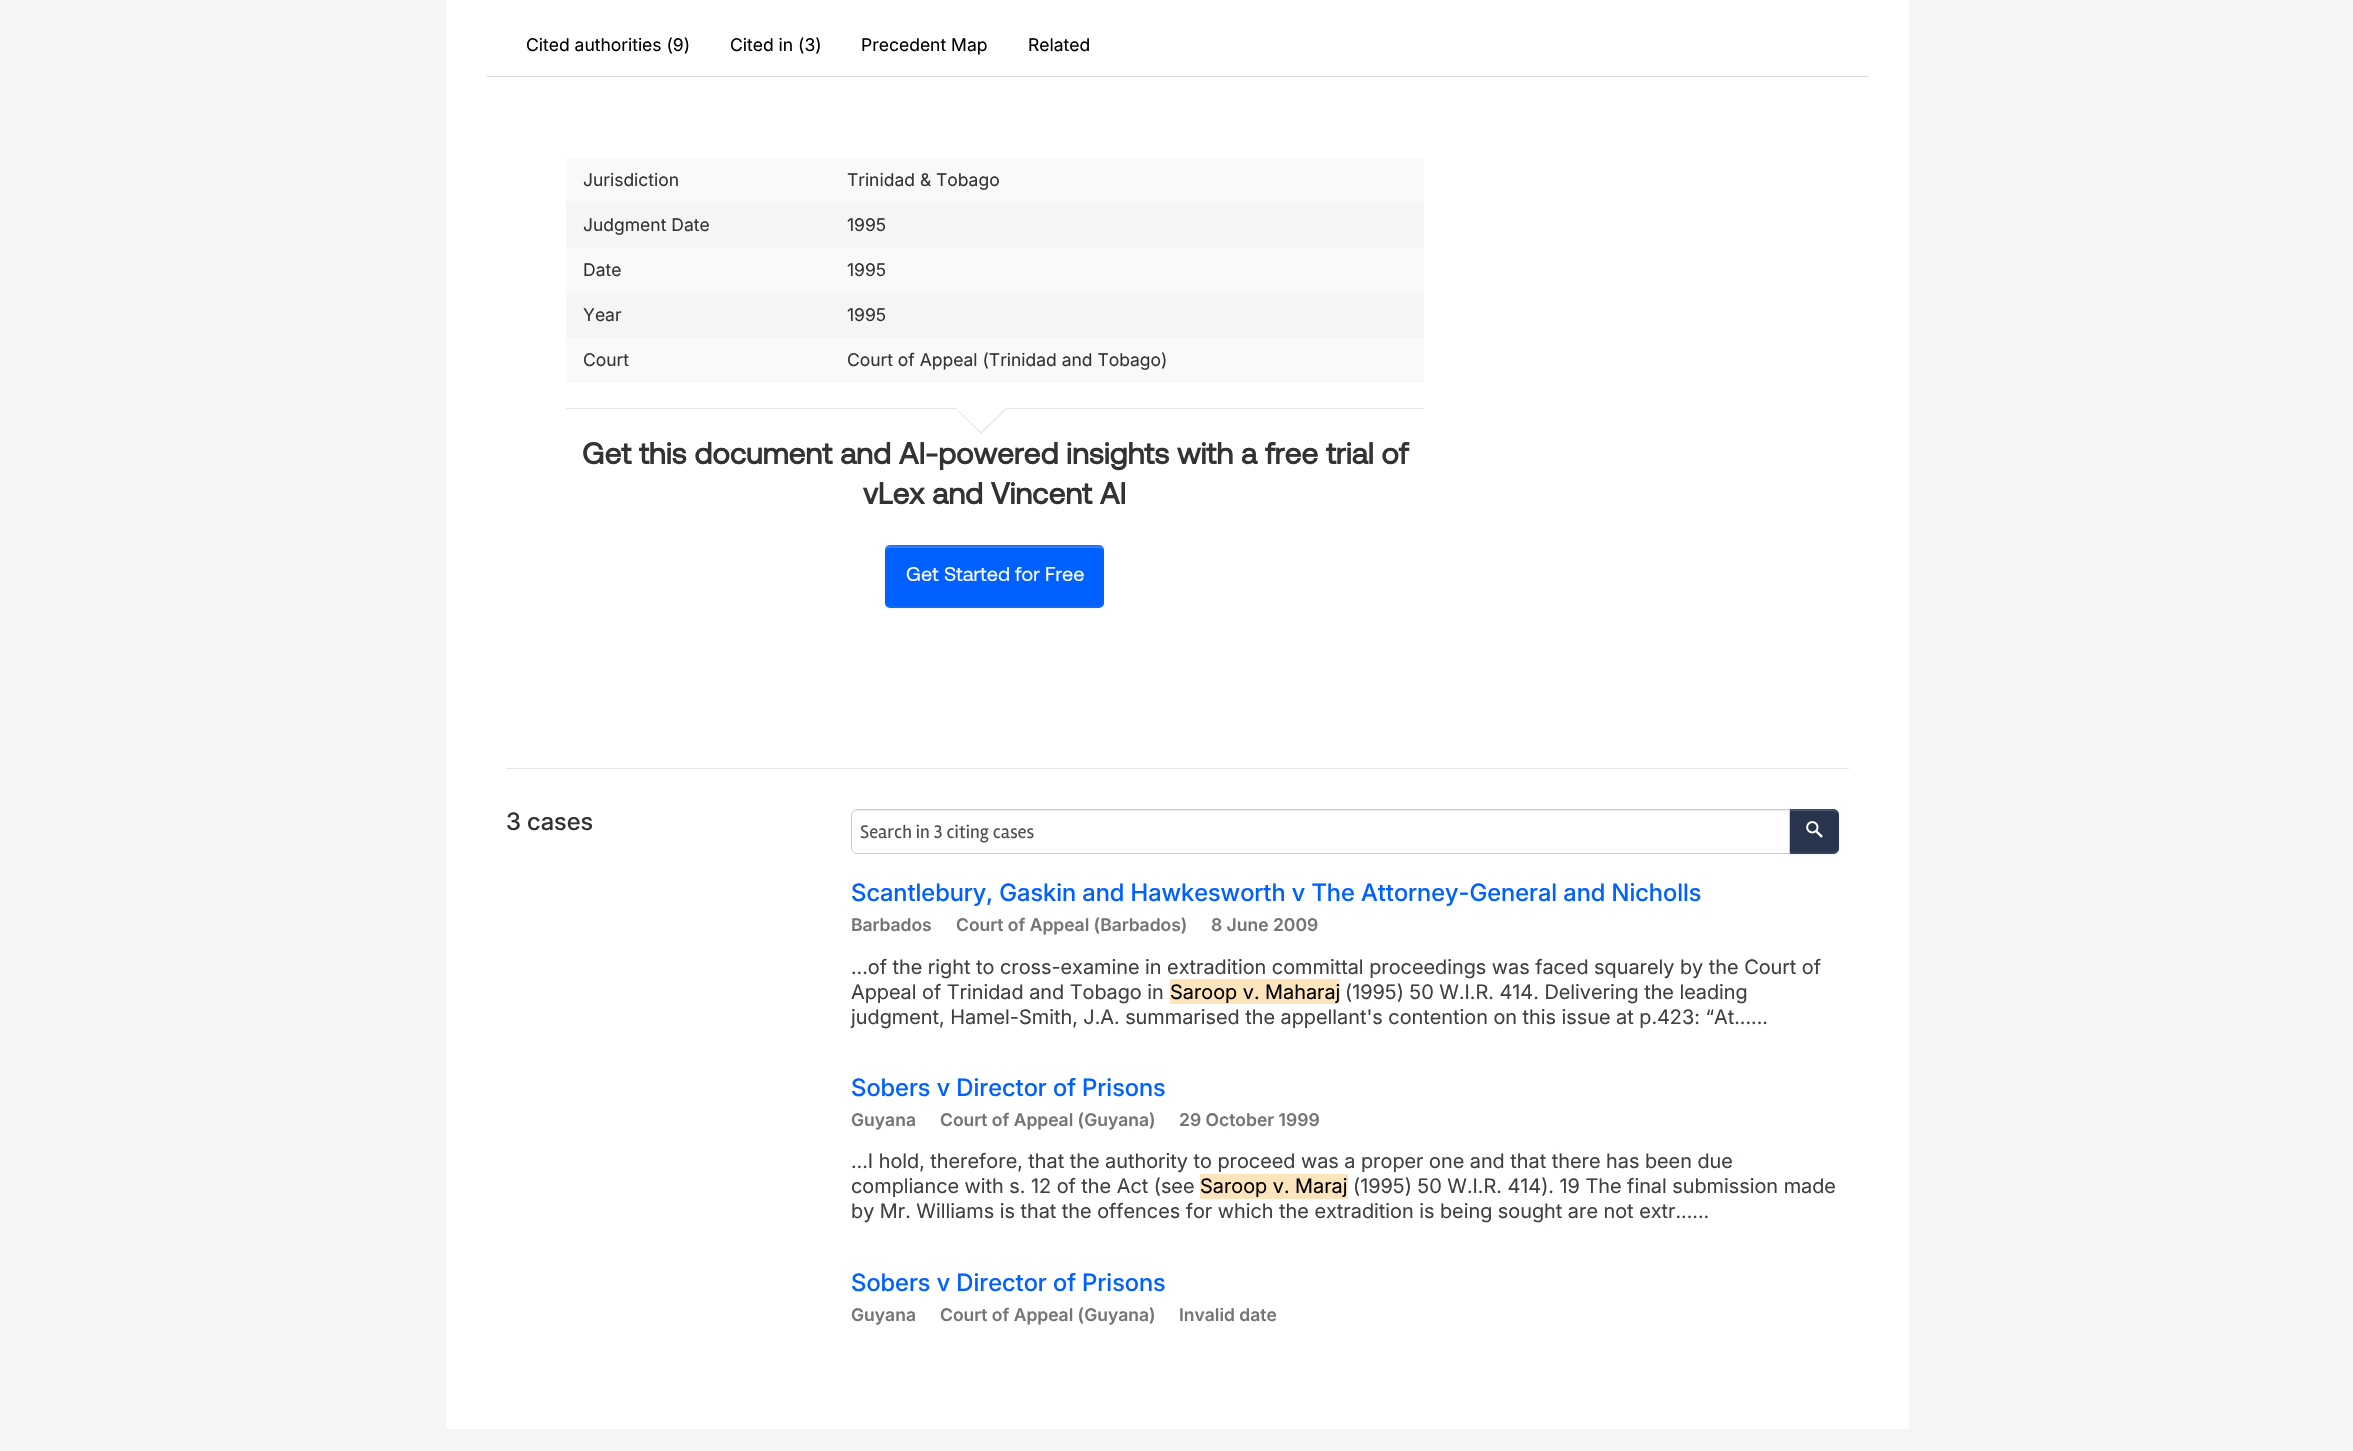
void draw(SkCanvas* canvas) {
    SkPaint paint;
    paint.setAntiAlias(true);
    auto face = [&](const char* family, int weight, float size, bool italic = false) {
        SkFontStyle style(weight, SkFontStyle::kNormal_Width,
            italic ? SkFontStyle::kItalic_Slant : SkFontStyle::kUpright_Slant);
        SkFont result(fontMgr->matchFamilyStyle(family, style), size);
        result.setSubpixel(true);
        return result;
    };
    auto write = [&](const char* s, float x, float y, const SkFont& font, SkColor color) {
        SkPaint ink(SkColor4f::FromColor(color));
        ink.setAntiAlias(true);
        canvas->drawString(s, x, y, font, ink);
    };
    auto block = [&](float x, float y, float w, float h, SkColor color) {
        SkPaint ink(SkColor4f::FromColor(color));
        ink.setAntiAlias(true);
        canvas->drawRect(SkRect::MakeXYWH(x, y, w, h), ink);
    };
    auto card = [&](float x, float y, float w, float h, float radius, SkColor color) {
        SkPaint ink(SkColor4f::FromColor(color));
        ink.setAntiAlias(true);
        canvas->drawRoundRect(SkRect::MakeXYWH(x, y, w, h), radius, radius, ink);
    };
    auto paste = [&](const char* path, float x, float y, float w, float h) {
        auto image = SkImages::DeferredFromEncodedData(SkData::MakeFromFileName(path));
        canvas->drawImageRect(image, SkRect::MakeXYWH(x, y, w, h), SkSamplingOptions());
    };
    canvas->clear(SkColorSetRGB(245, 245, 247));
    block(446, 0, 1463, 1429, SK_ColorWHITE);
    block(486, 76, 1383, 1, SkColorSetRGB(221, 221, 221));
    auto kFont1 = face("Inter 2", 400, 17.5f);
    write("Cited authorities (9)", 526, 51, kFont1, SK_ColorBLACK);
    write("Cited in (3)", 730, 51, kFont1, SK_ColorBLACK);
    write("Precedent Map", 861, 51, kFont1, SK_ColorBLACK);
    write("Related", 1028, 51, kFont1, SK_ColorBLACK);
    block(566, 158, 858, 45, SkColorSetRGB(249, 249, 249));
    write("Jurisdiction", 583, 186, kFont1, SkColorSetRGB(51, 51, 51));
    write("Trinidad & Tobago", 847, 186, kFont1, SkColorSetRGB(51, 51, 51));
    block(566, 203, 858, 45, SkColorSetRGB(245, 245, 247));
    write("Judgment Date", 583, 231, kFont1, SkColorSetRGB(51, 51, 51));
    write("1995", 847, 231, kFont1, SkColorSetRGB(51, 51, 51));
    block(566, 248, 858, 45, SkColorSetRGB(249, 249, 249));
    write("Date", 583, 276, kFont1, SkColorSetRGB(51, 51, 51));
    write("1995", 847, 276, kFont1, SkColorSetRGB(51, 51, 51));
    block(566, 293, 858, 45, SkColorSetRGB(245, 245, 247));
    write("Year", 583, 321, kFont1, SkColorSetRGB(51, 51, 51));
    write("1995", 847, 321, kFont1, SkColorSetRGB(51, 51, 51));
    block(566, 338, 858, 45, SkColorSetRGB(249, 249, 249));
    write("Court", 583, 366, kFont1, SkColorSetRGB(51, 51, 51));
    write("Court of Appeal (Trinidad and Tobago)", 847, 366, kFont1, SkColorSetRGB(51, 51, 51));
    block(566, 408, 858, 1, SkColorSetRGB(231, 231, 231));
    paint.setColor(SkColorSetRGB(231, 231, 231));
    canvas->drawPath(SkPathBuilder().moveTo(955, 408).lineTo(1008, 408).lineTo(981, 434).close().detach(), paint);
    paint.setColor(SK_ColorWHITE);
    canvas->drawPath(SkPathBuilder().moveTo(956, 408).lineTo(1006, 408).lineTo(981, 432).close().detach(), paint);
    auto kFont2 = face("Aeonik", 700, 30);
    write("Get this document and AI-powered insights with a free trial of", 582, 464, kFont2, SkColorSetRGB(51, 51, 51));
    write("vLex and Vincent AI", 863, 504, kFont2, SkColorSetRGB(51, 51, 51));
    paint.setColor(SkColorSetARGB(13, 0, 0, 0));
    paint.setMaskFilter(SkMaskFilter::MakeBlur(kNormal_SkBlurStyle, 1));
    canvas->drawRoundRect(SkRect::MakeXYWH(885, 546, 219, 63), 5, 5, paint);
    paint.setMaskFilter(nullptr);
    card(885, 545, 219, 63, 5, SkColorSetRGB(1, 97, 255));
    paint.setColor(SkColorSetARGB(51, 255, 255, 255));
    canvas->drawPath(SkPathBuilder().moveTo(890, 548).lineTo(1099, 548).cubicTo(1101, 548, 1103, 549, 1104, 550).cubicTo(1104, 548, 1101, 546, 1099, 546).lineTo(890, 546).cubicTo(887, 546, 885, 548, 885, 550).lineTo(885, 551).cubicTo(885, 549, 887, 548, 890, 548).close().detach(), paint);
    paint.setColor(SkColorSetARGB(26, 168, 203, 255));
    canvas->drawPath(SkPathBuilder().moveTo(890, 545).cubicTo(887, 545, 885, 547, 885, 550).cubicTo(885, 548, 887, 546, 890, 546).lineTo(1099, 546).cubicTo(1101, 546, 1103, 547, 1104, 549).cubicTo(1104, 546, 1101, 545, 1099, 545).close().detach(), paint);
    paint.setColor(SkColorSetARGB(26, 164, 189, 219));
    canvas->drawPath(SkPathBuilder().moveTo(888, 608).cubicTo(886, 607, 885, 604, 885, 602).cubicTo(885, 605, 887, 606, 890, 606).lineTo(1099, 606).cubicTo(1101, 606, 1103, 605, 1104, 604).lineTo(1103, 606).lineTo(1101, 608).close().detach(), paint);
    auto kFont3 = face("Aeonik", 400, 20);
    write("Get Started for Free", 906, 581, kFont3, SK_ColorWHITE);
    block(506, 768, 1343, 1, SkColorSetRGB(231, 231, 231));
    auto kFont4 = face("Inter", 500, 24);
    write("3 cases", 506, 830, kFont4, SkColorSetRGB(51, 51, 51));
    paint.setColor(SkColorSetRGB(236, 236, 236));
    canvas->drawPath(SkPathBuilder().moveTo(858, 811).lineTo(1789, 811).lineTo(1789, 810).lineTo(858, 810).cubicTo(856, 810, 854, 811, 854, 813).cubicTo(855, 812, 856, 811, 858, 811).close().detach(), paint);
    paint.setStyle(SkPaint::kStroke_Style);
    paint.setStrokeWidth(1);
    paint.setColor(SkColorSetRGB(204, 204, 204));
    canvas->drawPath(SkPathBuilder().moveTo(857, 809.5f).lineTo(1789.5f, 809.5f).lineTo(1789.5f, 853.5f).lineTo(857, 853.5f).cubicTo(854, 853.5f, 851.5f, 851, 851.5f, 848).lineTo(851.5f, 815).cubicTo(851.5f, 812, 854, 809.5f, 857, 809.5f).close().detach(), paint);
    auto kFont5 = face("Rambla", 400, 18.75f);
    write("Search in 3 citing cases", 860, 838, kFont5, SkColorSetRGB(80, 80, 80));
    paint.setStyle(SkPaint::kFill_Style);
    paint.setColor(SkColorSetARGB(13, 0, 0, 0));
    paint.setMaskFilter(SkMaskFilter::MakeBlur(kNormal_SkBlurStyle, 1));
    canvas->drawRoundRect(SkRect::MakeXYWH(1790, 810, 49, 45), 6, 6, paint);
    paint.setMaskFilter(nullptr);
    paint.setColor(SkColorSetRGB(41, 53, 78));
    canvas->drawPath(SkPathBuilder().moveTo(1790, 809).lineTo(1833, 809).cubicTo(1836.5f, 809, 1839, 811.5f, 1839, 815).lineTo(1839, 848).cubicTo(1839, 851.5f, 1836.5f, 854, 1833, 854).lineTo(1790, 854).close().detach(), paint);
    paint.setColor(SkColorSetRGB(84, 93, 113));
    canvas->drawPath(SkPathBuilder().moveTo(1790, 811).lineTo(1832, 811).cubicTo(1835, 811, 1838, 812, 1839, 814).cubicTo(1838, 812, 1836, 810, 1832, 810).lineTo(1790, 810).close().detach(), paint);
    paint.setColor(SkColorSetARGB(26, 168, 203, 255));
    canvas->drawPath(SkPathBuilder().moveTo(1790, 810).lineTo(1832, 810).cubicTo(1835, 810, 1838, 811, 1839, 814).cubicTo(1839, 807, 1820, 809, 1818, 809).lineTo(1790, 809).close().detach(), paint);
    paint.setColor(SkColorSetARGB(26, 164, 189, 219));
    canvas->drawPath(SkPathBuilder().moveTo(1839, 849).cubicTo(1838, 851, 1835, 852, 1832, 852).lineTo(1790, 852).lineTo(1790, 854).lineTo(1834, 854).cubicTo(1836, 853, 1838, 851, 1839, 850).close().detach(), paint);
    paste("pic1.png", 1806, 821, 17, 17);
    auto kFont6 = face("Inter 2", 500, 24);
    write("Scantlebury, Gaskin and Hawkesworth v The Attorney-General and Nicholls", 851, 901, kFont6, SkColorSetRGB(1, 97, 255));
    auto kFont7 = face("Inter", 600, 17.5f);
    write("Barbados", 851, 931, kFont7, SkColorSetRGB(120, 116, 116));
    write("Court of Appeal (Barbados)", 956, 931, kFont7, SkColorSetRGB(120, 116, 116));
    write("8 June 2009", 1211, 931, kFont7, SkColorSetRGB(120, 116, 116));
    auto kFont8 = face("Inter", 400, 20);
    write("...of the right to cross-examine in extradition committal proceedings was faced squarely by the Court of", 851, 974, kFont8, SkColorSetRGB(67, 63, 65));
    write("Appeal of Trinidad and Tobago in", 851, 999, kFont8, SkColorSetRGB(67, 63, 65));
    block(1170, 979, 170, 25, SkColorSetRGB(252, 228, 189));
    write("Saroop v. Maharaj", 1170, 999, kFont8, SK_ColorBLACK);
    write("(1995) 50 W.I.R. 414. Delivering the leading", 1345, 999, kFont8, SkColorSetRGB(67, 63, 65));
    write("judgment, Hamel-Smith, J.A. summarised the appellant's contention on this issue at p.423: “At......", 851, 1024, kFont8, SkColorSetRGB(67, 63, 65));
    write("Sobers v Director of Prisons", 851, 1096, kFont6, SkColorSetRGB(1, 97, 255));
    write("Guyana", 851, 1126, kFont7, SkColorSetRGB(120, 116, 116));
    write("Court of Appeal (Guyana)", 940, 1126, kFont7, SkColorSetRGB(120, 116, 116));
    write("29 October 1999", 1179, 1126, kFont7, SkColorSetRGB(120, 116, 116));
    write("...I hold, therefore, that the authority to proceed was a proper one and that there has been due", 851, 1168, kFont8, SkColorSetRGB(67, 63, 65));
    write("compliance with s. 12 of the Act (see", 851, 1193, kFont8, SkColorSetRGB(67, 63, 65));
    block(1200, 1174, 148, 25, SkColorSetRGB(252, 228, 189));
    write("Saroop v. Maraj", 1200, 1193, kFont8, SK_ColorBLACK);
    write("(1995) 50 W.I.R. 414). 19 The final submission made", 1353, 1193, kFont8, SkColorSetRGB(67, 63, 65));
    write("by Mr. Williams is that the offences for which the extradition is being sought are not extr......", 851, 1218, kFont8, SkColorSetRGB(67, 63, 65));
    write("Sobers v Director of Prisons", 851, 1291, kFont6, SkColorSetRGB(1, 97, 255));
    write("Guyana", 851, 1321, kFont7, SkColorSetRGB(120, 116, 116));
    write("Court of Appeal (Guyana)", 940, 1321, kFont7, SkColorSetRGB(120, 116, 116));
    write("Invalid date", 1179, 1321, kFont7, SkColorSetRGB(120, 116, 116));
}
